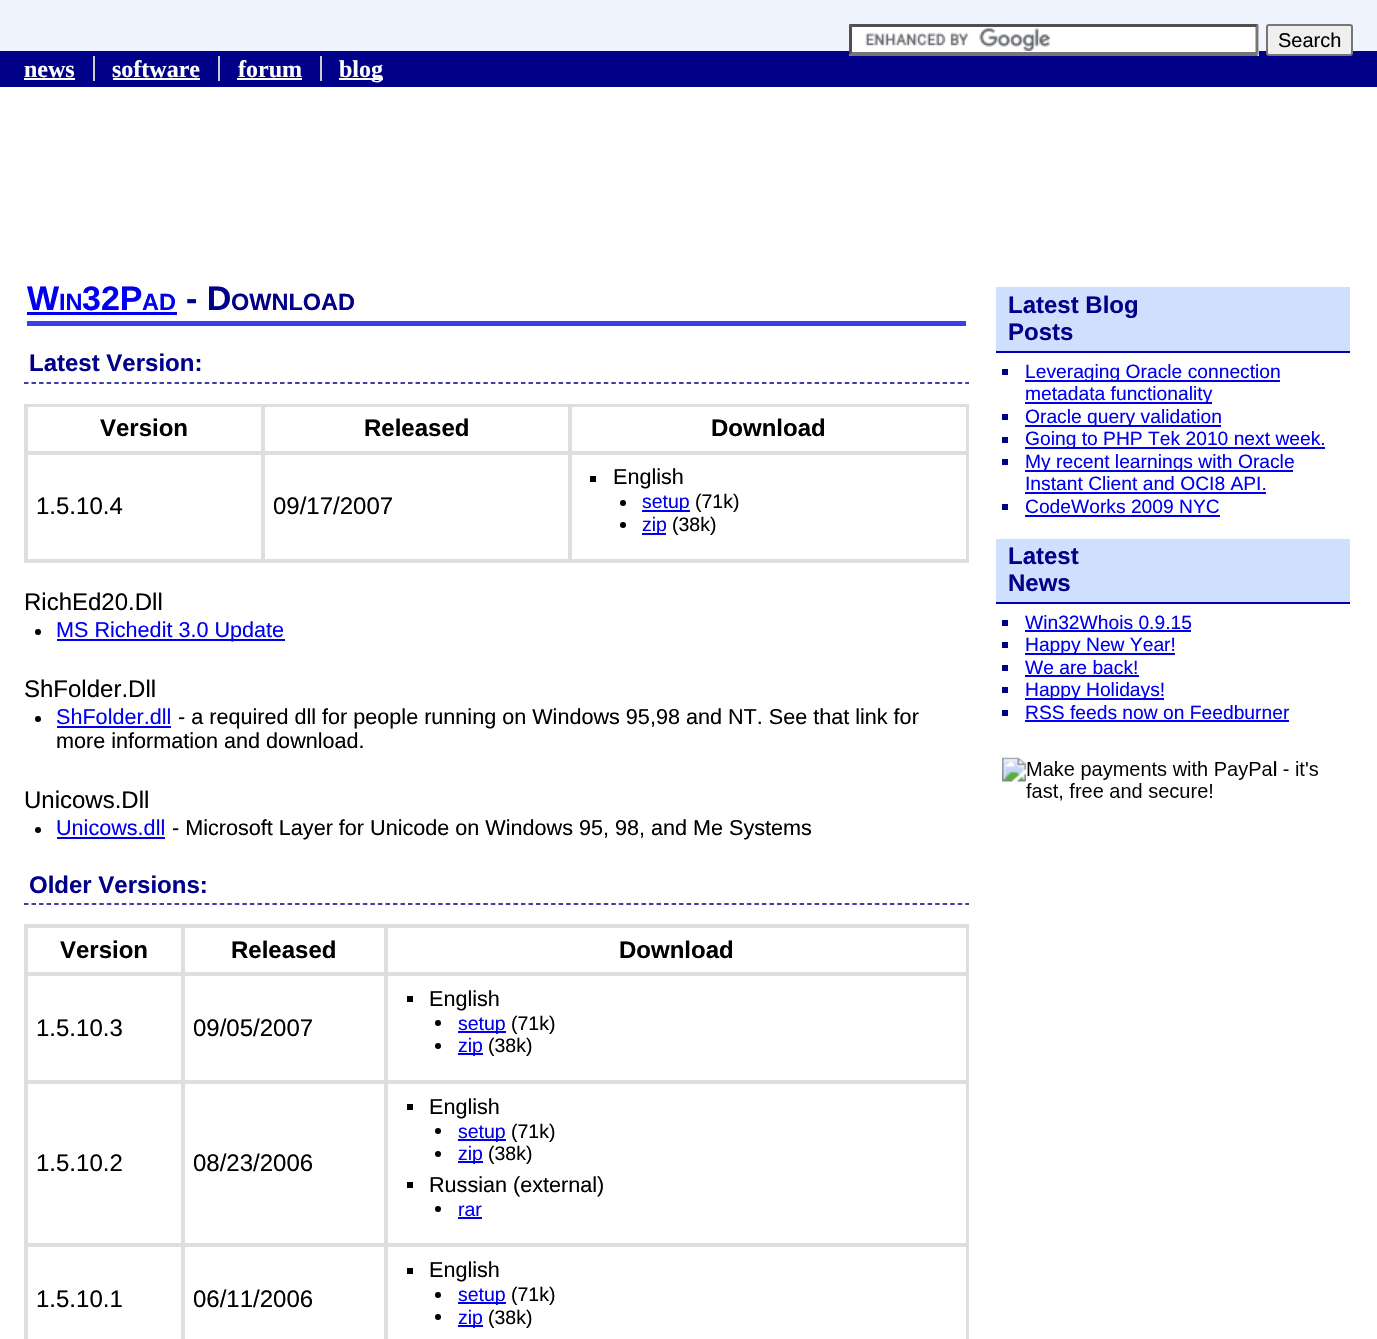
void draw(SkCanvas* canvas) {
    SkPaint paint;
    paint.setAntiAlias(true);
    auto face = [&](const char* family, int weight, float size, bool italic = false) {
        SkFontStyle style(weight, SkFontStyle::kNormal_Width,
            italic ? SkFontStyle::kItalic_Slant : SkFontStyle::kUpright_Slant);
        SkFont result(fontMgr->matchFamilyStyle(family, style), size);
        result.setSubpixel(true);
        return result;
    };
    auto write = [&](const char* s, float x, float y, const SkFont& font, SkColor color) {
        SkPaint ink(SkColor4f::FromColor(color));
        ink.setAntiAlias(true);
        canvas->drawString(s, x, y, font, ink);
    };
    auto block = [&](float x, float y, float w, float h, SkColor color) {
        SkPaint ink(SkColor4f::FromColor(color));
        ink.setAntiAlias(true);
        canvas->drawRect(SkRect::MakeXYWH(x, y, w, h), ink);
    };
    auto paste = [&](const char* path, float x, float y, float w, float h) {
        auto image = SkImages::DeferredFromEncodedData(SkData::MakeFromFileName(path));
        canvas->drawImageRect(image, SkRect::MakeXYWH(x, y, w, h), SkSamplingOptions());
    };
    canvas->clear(SK_ColorWHITE);
    block(0, 0, 1377, 51, SkColorSetRGB(240, 244, 255));
    block(0, 51, 1377, 36, SkColorSetRGB(0, 0, 136));
    block(849, 24, 410, 32, SK_ColorWHITE);
    paste("pic1.png", 865, 28, 185, 23);
    paint.setColor(SkColorSetRGB(79, 79, 79));
    canvas->drawPath(SkPathBuilder().moveTo(849, 24).lineTo(1258, 24).lineTo(1256, 27).lineTo(852, 27).close().detach(), paint);
    paint.setColor(SkColorSetRGB(118, 118, 118));
    canvas->drawPath(SkPathBuilder().moveTo(1258.5f, 24).lineTo(1258.5f, 55.5f).lineTo(1255.5f, 52.5f).lineTo(1255.5f, 27).close().detach(), paint);
    canvas->drawPath(SkPathBuilder().moveTo(1258, 56).lineTo(849, 56).lineTo(852, 52).lineTo(1256, 52).close().detach(), paint);
    paint.setColor(SkColorSetRGB(79, 79, 79));
    canvas->drawPath(SkPathBuilder().moveTo(849, 55.5f).lineTo(849, 24).lineTo(852, 27).lineTo(852, 52.5f).close().detach(), paint);
    paint.setColor(SkColorSetRGB(239, 239, 239));
    canvas->drawRoundRect(SkRect::MakeXYWH(1267, 25, 85, 30), 2, 2, paint);
    paint.setStyle(SkPaint::kStroke_Style);
    paint.setStrokeWidth(2);
    paint.setColor(SkColorSetRGB(118, 118, 118));
    canvas->drawRoundRect(SkRect::MakeXYWH(1267, 25, 85, 30), 2, 2, paint);
    auto kFont1 = face("Liberation Sans", 400, 20);
    write("Search", 1278, 47, kFont1, SK_ColorBLACK);
    auto kFont2 = face("Liberation Serif", 700, 24);
    write("news", 24, 77, kFont2, SK_ColorWHITE);
    block(93, 56, 2, 25, SkColorSetRGB(204, 204, 204));
    block(24, 78, 51, 2, SK_ColorWHITE);
    write("software", 112, 77, kFont2, SK_ColorWHITE);
    block(218, 56, 2, 25, SkColorSetRGB(204, 204, 204));
    block(113, 78, 87, 2, SK_ColorWHITE);
    write("forum", 238, 77, kFont2, SK_ColorWHITE);
    block(320, 56, 2, 25, SkColorSetRGB(204, 204, 204));
    block(237, 78, 65, 2, SK_ColorWHITE);
    block(339, 78, 44, 2, SK_ColorWHITE);
    write("blog", 339, 77, kFont2, SK_ColorWHITE);
    block(27, 321, 939, 5, SkColorSetRGB(59, 61, 239));
    auto kFont3 = face("Liberation Sans", 700, 34);
    write("W", 27, 310, kFont3, SkColorSetRGB(0, 0, 238));
    auto kFont4 = face("Liberation Sans", 700, 23.5f);
    write("IN", 59, 310, kFont4, SkColorSetRGB(0, 0, 238));
    block(27, 312, 150, 3, SkColorSetRGB(0, 0, 238));
    write("32P", 82, 310, kFont3, SkColorSetRGB(0, 0, 238));
    write("AD", 142, 310, kFont4, SkColorSetRGB(0, 0, 238));
    write("- D", 186, 310, kFont3, SkColorSetRGB(0, 0, 136));
    write("OWNLOAD", 231, 310, kFont4, SkColorSetRGB(0, 0, 136));
    paint.setStrokeWidth(1.5f);
    paint.setColor(SkColorSetRGB(0, 0, 136));
    paint.setPathEffect(SkDashPathEffect::Make({{4.5f, 3.03f}}, 0));
    canvas->drawPath(SkPathBuilder().moveTo(24, 383).lineTo(969, 383).detach(), paint);
    paint.setPathEffect(nullptr);
    auto kFont5 = face("Liberation Sans", 700, 24);
    write("Latest Version:", 29, 371, kFont5, SkColorSetRGB(0, 0, 136));
    paint.setStrokeWidth(2);
    paint.setColor(SkColorSetRGB(222, 222, 222));
    canvas->drawRect(SkRect::MakeXYWH(25, 405, 943, 157), paint);
    canvas->drawRect(SkRect::MakeXYWH(27, 406, 235, 46), paint);
    write("Version", 100, 436, kFont5, SK_ColorBLACK);
    canvas->drawRect(SkRect::MakeXYWH(264, 406, 305, 46), paint);
    write("Released", 364, 436, kFont5, SK_ColorBLACK);
    canvas->drawRect(SkRect::MakeXYWH(571, 406, 396, 46), paint);
    write("Download", 711, 436, kFont5, SK_ColorBLACK);
    canvas->drawRect(SkRect::MakeXYWH(27, 454, 235, 106), paint);
    auto kFont6 = face("Liberation Sans", 400, 24);
    write("1.5.10.4", 36, 514, kFont6, SK_ColorBLACK);
    canvas->drawRect(SkRect::MakeXYWH(264, 454, 305, 106), paint);
    write("09/17/2007", 273, 514, kFont6, SK_ColorBLACK);
    canvas->drawRect(SkRect::MakeXYWH(571, 454, 396, 106), paint);
    block(590, 476, 6, 6, SK_ColorBLACK);
    auto kFont7 = face("Liberation Sans", 400, 21.6f);
    write("English", 613, 484, kFont7, SK_ColorBLACK);
    paint.setStyle(SkPaint::kFill_Style);
    paint.setColor(SK_ColorBLACK);
    canvas->drawCircle(623, 503, 3, paint);
    block(642, 510, 48, 2, SkColorSetRGB(0, 0, 238));
    auto kFont8 = face("Liberation Sans", 400, 19.5f);
    write("setup", 642, 508, kFont8, SkColorSetRGB(0, 0, 238));
    write("(71k)", 695, 508, kFont8, SK_ColorBLACK);
    canvas->drawCircle(623, 525, 3, paint);
    block(642, 533, 24, 2, SkColorSetRGB(0, 0, 238));
    write("zip", 642, 531, kFont8, SkColorSetRGB(0, 0, 238));
    write("(38k)", 672, 531, kFont8, SK_ColorBLACK);
    write("RichEd20.Dll", 24, 610, kFont6, SK_ColorBLACK);
    canvas->drawCircle(38, 632, 3, paint);
    block(57, 639, 228, 2, SkColorSetRGB(0, 0, 238));
    write("MS Richedit 3.0 Update", 56, 637, kFont7, SkColorSetRGB(0, 0, 238));
    write("ShFolder.Dll", 24, 697, kFont6, SK_ColorBLACK);
    canvas->drawCircle(38, 719, 3, paint);
    write("ShFolder.dll", 56, 724, kFont7, SkColorSetRGB(0, 0, 238));
    block(57, 726, 114, 2, SkColorSetRGB(0, 0, 238));
    write("- a required dll for people running on Windows 95,98 and NT. See that link for", 178, 724, kFont7, SK_ColorBLACK);
    write("more information and download.", 56, 748, kFont7, SK_ColorBLACK);
    write("Unicows.Dll", 24, 808, kFont6, SK_ColorBLACK);
    canvas->drawCircle(38, 830, 3, paint);
    write("Unicows.dll", 56, 835, kFont7, SkColorSetRGB(0, 0, 238));
    block(57, 837, 108, 2, SkColorSetRGB(0, 0, 238));
    write("- Microsoft Layer for Unicode on Windows 95, 98, and Me Systems", 172, 835, kFont7, SK_ColorBLACK);
    paint.setStyle(SkPaint::kStroke_Style);
    paint.setStrokeWidth(1.5f);
    paint.setColor(SkColorSetRGB(0, 0, 136));
    paint.setPathEffect(SkDashPathEffect::Make({{4.5f, 3.03f}}, 0));
    canvas->drawPath(SkPathBuilder().moveTo(24, 904).lineTo(969, 904).detach(), paint);
    paint.setPathEffect(nullptr);
    write("Older Versions:", 29, 893, kFont5, SkColorSetRGB(0, 0, 136));
    paint.setStrokeWidth(2);
    paint.setColor(SkColorSetRGB(222, 222, 222));
    canvas->drawRect(SkRect::MakeXYWH(25, 925, 943, 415), paint);
    canvas->drawRect(SkRect::MakeXYWH(27, 927, 155, 46), paint);
    write("Version", 60, 958, kFont5, SK_ColorBLACK);
    canvas->drawRect(SkRect::MakeXYWH(184, 927, 201, 46), paint);
    write("Released", 231, 958, kFont5, SK_ColorBLACK);
    canvas->drawRect(SkRect::MakeXYWH(387, 927, 580, 46), paint);
    write("Download", 619, 958, kFont5, SK_ColorBLACK);
    canvas->drawRect(SkRect::MakeXYWH(27, 975, 155, 106), paint);
    write("1.5.10.3", 36, 1036, kFont6, SK_ColorBLACK);
    canvas->drawRect(SkRect::MakeXYWH(184, 975, 201, 106), paint);
    write("09/05/2007", 193, 1036, kFont6, SK_ColorBLACK);
    canvas->drawRect(SkRect::MakeXYWH(387, 975, 580, 106), paint);
    block(407, 996, 6, 6, SK_ColorBLACK);
    write("English", 429, 1006, kFont7, SK_ColorBLACK);
    paint.setStyle(SkPaint::kFill_Style);
    paint.setColor(SK_ColorBLACK);
    canvas->drawCircle(438, 1023, 3, paint);
    block(458, 1031, 48, 2, SkColorSetRGB(0, 0, 238));
    write("setup", 458, 1030, kFont8, SkColorSetRGB(0, 0, 238));
    write("(71k)", 511, 1030, kFont8, SK_ColorBLACK);
    canvas->drawCircle(438, 1046, 3, paint);
    block(458, 1053, 25, 2, SkColorSetRGB(0, 0, 238));
    write("zip", 458, 1052, kFont8, SkColorSetRGB(0, 0, 238));
    write("(38k)", 488, 1052, kFont8, SK_ColorBLACK);
    paint.setStyle(SkPaint::kStroke_Style);
    paint.setColor(SkColorSetRGB(222, 222, 222));
    canvas->drawRect(SkRect::MakeXYWH(27, 1083, 155, 161), paint);
    write("1.5.10.2", 36, 1171, kFont6, SK_ColorBLACK);
    canvas->drawRect(SkRect::MakeXYWH(184, 1083, 201, 161), paint);
    write("08/23/2006", 193, 1171, kFont6, SK_ColorBLACK);
    canvas->drawRect(SkRect::MakeXYWH(387, 1083, 580, 161), paint);
    block(407, 1104, 6, 6, SK_ColorBLACK);
    write("English", 429, 1114, kFont7, SK_ColorBLACK);
    paint.setStyle(SkPaint::kFill_Style);
    paint.setColor(SK_ColorBLACK);
    canvas->drawCircle(438, 1131, 3, paint);
    block(458, 1139, 48, 2, SkColorSetRGB(0, 0, 238));
    write("setup", 458, 1138, kFont8, SkColorSetRGB(0, 0, 238));
    write("(71k)", 511, 1138, kFont8, SK_ColorBLACK);
    canvas->drawCircle(438, 1154, 3, paint);
    block(458, 1161, 25, 2, SkColorSetRGB(0, 0, 238));
    write("zip", 458, 1160, kFont8, SkColorSetRGB(0, 0, 238));
    write("(38k)", 488, 1160, kFont8, SK_ColorBLACK);
    block(407, 1182, 6, 6, SK_ColorBLACK);
    write("Russian (external)", 429, 1192, kFont7, SK_ColorBLACK);
    canvas->drawCircle(438, 1209, 3, paint);
    write("rar", 458, 1216, kFont8, SkColorSetRGB(0, 0, 238));
    block(458, 1217, 24, 2, SkColorSetRGB(0, 0, 238));
    paint.setStyle(SkPaint::kStroke_Style);
    paint.setColor(SkColorSetRGB(222, 222, 222));
    canvas->drawRect(SkRect::MakeXYWH(27, 1246, 155, 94), paint);
    write("1.5.10.1", 36, 1307, kFont6, SK_ColorBLACK);
    canvas->drawRect(SkRect::MakeXYWH(184, 1246, 201, 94), paint);
    write("06/11/2006", 193, 1307, kFont6, SK_ColorBLACK);
    canvas->drawRect(SkRect::MakeXYWH(387, 1246, 580, 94), paint);
    block(407, 1268, 6, 6, SK_ColorBLACK);
    write("English", 429, 1277, kFont7, SK_ColorBLACK);
    paint.setStyle(SkPaint::kFill_Style);
    paint.setColor(SK_ColorBLACK);
    canvas->drawCircle(438, 1295, 3, paint);
    block(458, 1302, 48, 2, SkColorSetRGB(0, 0, 238));
    write("setup", 458, 1301, kFont8, SkColorSetRGB(0, 0, 238));
    write("(71k)", 511, 1301, kFont8, SK_ColorBLACK);
    canvas->drawCircle(438, 1317, 3, paint);
    block(458, 1325, 25, 2, SkColorSetRGB(0, 0, 238));
    write("zip", 458, 1324, kFont8, SkColorSetRGB(0, 0, 238));
    write("(38k)", 488, 1324, kFont8, SK_ColorBLACK);
    block(996, 287, 354, 64, SkColorSetRGB(207, 224, 255));
    block(996, 351, 354, 2, SkColorSetRGB(0, 0, 187));
    write("Latest Blog", 1008, 313, kFont5, SkColorSetRGB(0, 0, 136));
    write("Posts", 1008, 340, kFont5, SkColorSetRGB(0, 0, 136));
    block(1002, 369, 6, 6, SkColorSetRGB(0, 0, 136));
    block(1025, 380, 255, 2, SkColorSetRGB(0, 0, 238));
    auto kFont9 = face("Liberation Sans", 400, 19.25f);
    write("Leveraging Oracle connection", 1025, 378, kFont9, SkColorSetRGB(0, 0, 238));
    block(1025, 402, 187, 2, SkColorSetRGB(0, 0, 238));
    write("metadata functionality", 1025, 400, kFont9, SkColorSetRGB(0, 0, 238));
    block(1002, 414, 6, 6, SkColorSetRGB(0, 0, 136));
    block(1025, 425, 196, 2, SkColorSetRGB(0, 0, 238));
    write("Oracle query validation", 1025, 423, kFont9, SkColorSetRGB(0, 0, 238));
    block(1002, 437, 6, 6, SkColorSetRGB(0, 0, 136));
    block(1025, 447, 300, 2, SkColorSetRGB(0, 0, 238));
    write("Going to PHP Tek 2010 next week.", 1025, 445, kFont9, SkColorSetRGB(0, 0, 238));
    block(1002, 459, 6, 6, SkColorSetRGB(0, 0, 136));
    block(1025, 470, 268, 2, SkColorSetRGB(0, 0, 238));
    write("My recent learnings with Oracle", 1025, 468, kFont9, SkColorSetRGB(0, 0, 238));
    write("Instant Client and OCI8 API.", 1025, 490, kFont9, SkColorSetRGB(0, 0, 238));
    block(1025, 492, 241, 2, SkColorSetRGB(0, 0, 238));
    block(1002, 504, 6, 6, SkColorSetRGB(0, 0, 136));
    write("CodeWorks 2009 NYC", 1025, 513, kFont9, SkColorSetRGB(0, 0, 238));
    block(1025, 515, 195, 2, SkColorSetRGB(0, 0, 238));
    block(996, 539, 354, 63, SkColorSetRGB(207, 224, 255));
    block(996, 602, 354, 2, SkColorSetRGB(0, 0, 187));
    write("Latest", 1008, 564, kFont5, SkColorSetRGB(0, 0, 136));
    write("News", 1008, 591, kFont5, SkColorSetRGB(0, 0, 136));
    block(1002, 620, 6, 6, SkColorSetRGB(0, 0, 136));
    write("Win32Whois 0.9.15", 1025, 629, kFont9, SkColorSetRGB(0, 0, 238));
    block(1025, 630, 166, 2, SkColorSetRGB(0, 0, 238));
    block(1002, 642, 6, 6, SkColorSetRGB(0, 0, 136));
    block(1025, 653, 150, 2, SkColorSetRGB(0, 0, 238));
    write("Happy New Year!", 1025, 651, kFont9, SkColorSetRGB(0, 0, 238));
    block(1002, 665, 6, 6, SkColorSetRGB(0, 0, 136));
    write("We are back!", 1025, 674, kFont9, SkColorSetRGB(0, 0, 238));
    block(1025, 675, 114, 2, SkColorSetRGB(0, 0, 238));
    block(1002, 687, 6, 6, SkColorSetRGB(0, 0, 136));
    block(1025, 698, 139, 2, SkColorSetRGB(0, 0, 238));
    write("Happy Holidays!", 1025, 696, kFont9, SkColorSetRGB(0, 0, 238));
    block(1002, 710, 6, 6, SkColorSetRGB(0, 0, 136));
    write("RSS feeds now on Feedburner", 1025, 719, kFont9, SkColorSetRGB(0, 0, 238));
    block(1025, 720, 264, 2, SkColorSetRGB(0, 0, 238));
    paste("pic2.png", 1002, 757, 316, 44);
    write("l", 1273, 776, kFont1, SK_ColorBLACK);
}
